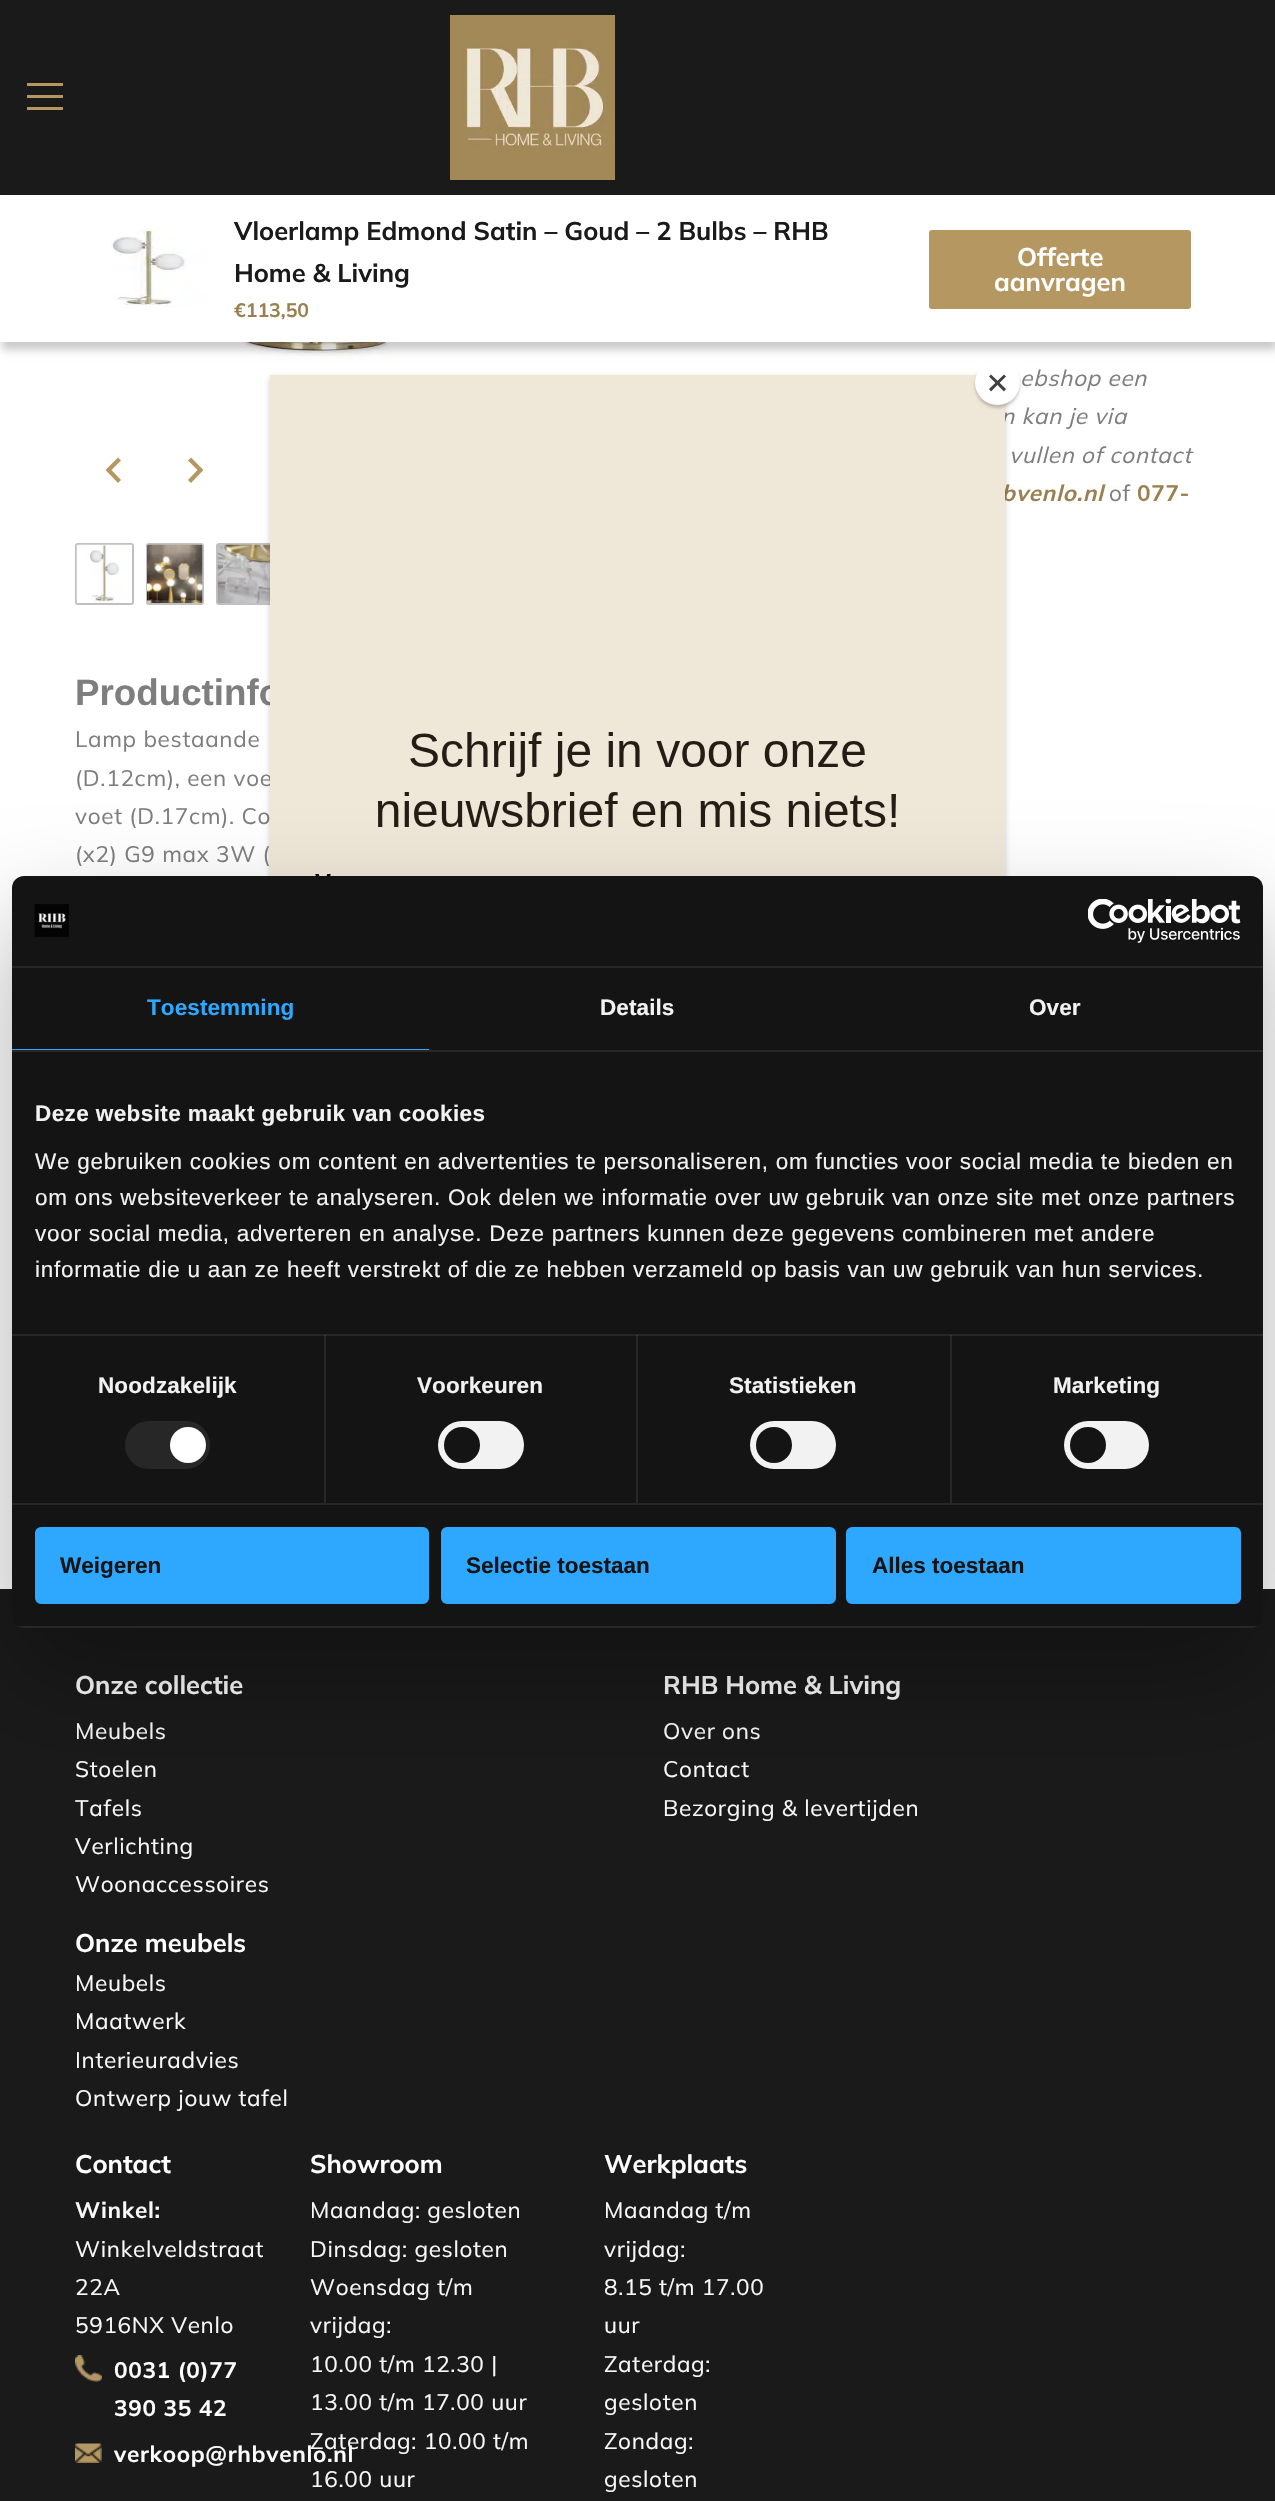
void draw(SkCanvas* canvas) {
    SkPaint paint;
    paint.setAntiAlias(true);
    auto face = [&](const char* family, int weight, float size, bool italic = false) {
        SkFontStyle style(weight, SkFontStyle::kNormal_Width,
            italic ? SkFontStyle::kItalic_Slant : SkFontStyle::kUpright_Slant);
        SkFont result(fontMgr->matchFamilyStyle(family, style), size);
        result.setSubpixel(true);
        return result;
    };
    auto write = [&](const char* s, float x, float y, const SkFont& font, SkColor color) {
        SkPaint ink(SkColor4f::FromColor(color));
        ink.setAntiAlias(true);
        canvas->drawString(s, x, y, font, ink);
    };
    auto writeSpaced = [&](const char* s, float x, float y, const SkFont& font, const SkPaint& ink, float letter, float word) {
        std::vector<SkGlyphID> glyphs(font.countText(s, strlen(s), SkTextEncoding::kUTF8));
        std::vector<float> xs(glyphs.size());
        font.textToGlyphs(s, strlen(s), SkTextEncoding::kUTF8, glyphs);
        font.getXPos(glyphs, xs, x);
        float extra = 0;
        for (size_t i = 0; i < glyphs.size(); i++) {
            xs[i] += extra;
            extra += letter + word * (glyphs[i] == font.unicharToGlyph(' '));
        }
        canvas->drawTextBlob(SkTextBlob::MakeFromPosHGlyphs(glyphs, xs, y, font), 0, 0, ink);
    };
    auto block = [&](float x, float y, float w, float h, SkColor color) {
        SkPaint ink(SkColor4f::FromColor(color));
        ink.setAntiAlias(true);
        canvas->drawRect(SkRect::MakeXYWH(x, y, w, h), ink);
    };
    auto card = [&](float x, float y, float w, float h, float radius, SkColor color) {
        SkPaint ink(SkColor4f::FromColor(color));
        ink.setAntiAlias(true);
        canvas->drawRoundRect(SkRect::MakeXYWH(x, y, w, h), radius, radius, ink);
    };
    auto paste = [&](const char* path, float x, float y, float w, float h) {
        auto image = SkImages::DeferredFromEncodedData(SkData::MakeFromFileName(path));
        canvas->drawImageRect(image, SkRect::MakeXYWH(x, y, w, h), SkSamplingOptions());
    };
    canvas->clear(SK_ColorWHITE);
    paste("pic3.png", 199, 342, 237, 18);
    paint.setColor(SkColorSetARGB(51, 0, 0, 0));
    paint.setMaskFilter(SkMaskFilter::MakeBlur(kNormal_SkBlurStyle, 4));
    canvas->drawRect(SkRect::MakeXYWH(2, 203, 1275, 147), paint);
    paint.setMaskFilter(nullptr);
    block(0, 0, 1275, 195, SkColorSetRGB(26, 26, 26));
    block(27, 83, 36, 3, SkColorSetRGB(181, 151, 98));
    block(27, 95, 36, 3, SkColorSetRGB(181, 151, 98));
    block(27, 107, 36, 3, SkColorSetRGB(181, 151, 98));
    paste("pic1.png", 450, 15, 165, 165);
    block(0, 196, 1275, 146, SK_ColorWHITE);
    paste("pic2.png", 111, 229, 97, 78);
    auto kFont1 = face("Mulish", 700, 25.5f);
    write("Vloerlamp Edmond Satin – Goud – 2 Bulbs – RHB", 234, 240, kFont1, SkColorSetRGB(26, 26, 26));
    write("Home & Living", 234, 282, kFont1, SkColorSetRGB(26, 26, 26));
    auto kFont2 = face("Mulish", 700, 19.5f);
    write("€113,50", 234, 317, kFont2, SkColorSetRGB(154, 128, 81));
    paint.setColor(SkColorSetRGB(181, 151, 98));
    canvas->drawRoundRect(SkRect::MakeXYWH(930, 231, 260, 77), 2, 2, paint);
    paint.setStyle(SkPaint::kStroke_Style);
    paint.setStrokeWidth(2);
    canvas->drawRoundRect(SkRect::MakeXYWH(930, 231, 260, 77), 2, 2, paint);
    write("Offerte", 1017, 266, kFont1, SK_ColorWHITE);
    write("aanvragen", 994, 291, kFont1, SK_ColorWHITE);
    paint.setStyle(SkPaint::kFill_Style);
    canvas->drawPath(SkPathBuilder().moveTo(121, 480).lineTo(111.5f, 470).lineTo(121, 460.5f).lineTo(118, 457.5f).lineTo(105.5f, 470).lineTo(118, 483).close().detach(), paint);
    canvas->drawPath(SkPathBuilder().moveTo(188, 460.5f).lineTo(197.5f, 470).lineTo(188, 480).lineTo(191, 483).lineTo(203.5f, 470).lineTo(191, 457.5f).close().detach(), paint);
    paint.setStyle(SkPaint::kStroke_Style);
    paint.setColor(SkColorSetRGB(192, 192, 192));
    canvas->drawRoundRect(SkRect::MakeXYWH(76, 544, 57, 60), 2, 2, paint);
    paste("pic4.png", 76, 544, 56, 59);
    canvas->drawRoundRect(SkRect::MakeXYWH(147, 544, 56, 60), 2, 2, paint);
    paste("pic5.png", 147, 544, 56, 59);
    canvas->drawRoundRect(SkRect::MakeXYWH(217, 544, 55, 60), 2, 2, paint);
    paste("pic6.png", 217, 544, 53, 59);
    auto kFont3 = face("Mulish", 400, 22.5f, true);
    paint.setStyle(SkPaint::kFill_Style);
    paint.setColor(SkColorSetRGB(126, 126, 126));
    writeSpaced("ebshop een", 1020, 386, kFont3, paint, 0.7f, 0);
    writeSpaced("n kan je via", 1001, 424, kFont3, paint, 0.7f, 0);
    writeSpaced("vullen of contact", 1009, 463, kFont3, paint, 0.7f, 0);
    auto kFont4 = face("Mulish", 700, 22.5f, true);
    paint.setColor(SkColorSetRGB(154, 128, 81));
    writeSpaced("bvenlo.nl", 1001, 501, kFont4, paint, 0.7f, 0);
    auto kFont5 = face("Mulish", 400, 22.5f);
    paint.setColor(SkColorSetRGB(126, 126, 126));
    writeSpaced("of", 1109, 501, kFont5, paint, 0.7f, 0);
    auto kFont6 = face("Mulish", 700, 22.5f);
    paint.setColor(SkColorSetRGB(154, 128, 81));
    writeSpaced("077-", 1137, 501, kFont6, paint, 0.7f, 0);
    auto kFont7 = face("Liberation Sans", 700, 36.75f);
    write("Productinfo", 75, 705, kFont7, SkColorSetRGB(126, 126, 126));
    paint.setColor(SkColorSetRGB(126, 126, 126));
    writeSpaced("Lamp bestaande", 75, 747, kFont5, paint, 0.7f, 0);
    writeSpaced("(D.12cm), een voe", 75, 786, kFont5, paint, 0.7f, 0);
    writeSpaced("voet (D.17cm). Co", 75, 824, kFont5, paint, 0.7f, 0);
    writeSpaced("(x2) G9 max 3W (", 75, 862, kFont5, paint, 0.7f, 0);
    block(0, 1589, 1275, 912, SkColorSetRGB(26, 26, 26));
    write("Onze collectie", 75, 1694, kFont1, SK_ColorWHITE);
    paint.setColor(SkColorSetRGB(249, 249, 249));
    writeSpaced("Meubels", 75, 1739, kFont5, paint, 0.7f, 0);
    writeSpaced("Stoelen", 75, 1777, kFont5, paint, 0.7f, 0);
    writeSpaced("Tafels", 75, 1816, kFont5, paint, 0.7f, 0);
    writeSpaced("Verlichting", 75, 1854, kFont5, paint, 0.7f, 0);
    writeSpaced("Woonaccessoires", 75, 1892, kFont5, paint, 0.7f, 0);
    write("Onze meubels", 75, 1952, kFont1, SK_ColorWHITE);
    writeSpaced("Meubels", 75, 1991, kFont5, paint, 0.7f, 0);
    writeSpaced("Maatwerk", 75, 2029, kFont5, paint, 0.7f, 0);
    writeSpaced("Interieuradvies", 75, 2068, kFont5, paint, 0.7f, 0);
    writeSpaced("Ontwerp jouw tafel", 75, 2106, kFont5, paint, 0.7f, 0);
    write("RHB Home & Living", 663, 1694, kFont1, SK_ColorWHITE);
    writeSpaced("Over ons", 663, 1739, kFont5, paint, 0.7f, 0);
    writeSpaced("Contact", 663, 1777, kFont5, paint, 0.7f, 0);
    writeSpaced("Bezorging & levertijden", 663, 1816, kFont5, paint, 0.7f, 0);
    write("Contact", 75, 2173, kFont1, SK_ColorWHITE);
    writeSpaced("Winkel:", 75, 2218, kFont6, paint, 0.7f, 0);
    writeSpaced("Winkelveldstraat", 75, 2257, kFont5, paint, 0.7f, 0);
    writeSpaced("22A", 75, 2295, kFont5, paint, 0.7f, 0);
    writeSpaced("5916NX Venlo", 75, 2333, kFont5, paint, 0.7f, 0);
    paste("pic7.png", 75, 2355, 27, 27);
    paint.setColor(SK_ColorWHITE);
    writeSpaced("0031 (0)77", 114, 2378, kFont6, paint, 0.7f, 0);
    writeSpaced("390 35 42", 114, 2416, kFont6, paint, 0.7f, 0);
    paste("pic8.png", 75, 2443, 27, 20);
    writeSpaced("verkoop@rhbvenlo.nl", 114, 2462, kFont6, paint, 0.7f, 0);
    write("Showroom", 310, 2173, kFont1, SK_ColorWHITE);
    paint.setColor(SkColorSetRGB(249, 249, 249));
    writeSpaced("Maandag: gesloten", 310, 2218, kFont5, paint, 0.7f, 0);
    writeSpaced("Dinsdag: gesloten", 310, 2257, kFont5, paint, 0.7f, 0);
    writeSpaced("Woensdag t/m", 310, 2295, kFont5, paint, 0.7f, 0);
    writeSpaced("vrijdag:", 310, 2333, kFont5, paint, 0.7f, 0);
    writeSpaced("10.00 t/m 12.30 |", 310, 2372, kFont5, paint, 0.7f, 0);
    writeSpaced("13.00 t/m 17.00 uur", 310, 2410, kFont5, paint, 0.7f, 0);
    writeSpaced("Zaterdag: 10.00 t/m", 310, 2449, kFont5, paint, 0.7f, 0);
    writeSpaced("16.00 uur", 310, 2487, kFont5, paint, 0.7f, 0);
    write("Werkplaats", 604, 2173, kFont1, SK_ColorWHITE);
    writeSpaced("Maandag t/m", 604, 2218, kFont5, paint, 0.7f, 0);
    writeSpaced("vrijdag:", 604, 2257, kFont5, paint, 0.7f, 0);
    writeSpaced("8.15 t/m 17.00", 604, 2295, kFont5, paint, 0.7f, 0);
    writeSpaced("uur", 604, 2333, kFont5, paint, 0.7f, 0);
    writeSpaced("Zaterdag:", 604, 2372, kFont5, paint, 0.7f, 0);
    writeSpaced("gesloten", 604, 2410, kFont5, paint, 0.7f, 0);
    writeSpaced("Zondag:", 604, 2449, kFont5, paint, 0.7f, 0);
    writeSpaced("gesloten", 604, 2487, kFont5, paint, 0.7f, 0);
    paint.setColor(SkColorSetARGB(51, 0, 0, 0));
    paint.setMaskFilter(SkMaskFilter::MakeBlur(kNormal_SkBlurStyle, 3));
    canvas->drawRect(SkRect::MakeXYWH(270, 378, 735, 1061), paint);
    paint.setMaskFilter(nullptr);
    paste("pic9.png", 270, 375, 735, 501);
    paint.setMaskFilter(SkMaskFilter::MakeBlur(kNormal_SkBlurStyle, 1.5f));
    canvas->drawRoundRect(SkRect::MakeXYWH(975, 363, 45, 45), 22.5f, 22.5f, paint);
    paint.setMaskFilter(nullptr);
    paint.setColor(SK_ColorWHITE);
    canvas->drawCircle(997.5f, 382.5f, 22.5f, paint);
    paint.setColor(SkColorSetRGB(65, 65, 65));
    canvas->drawPath(SkPathBuilder().moveTo(1004, 374.5f).lineTo(1006, 376.5f).lineTo(991, 391.5f).lineTo(989, 389).close().detach(), paint);
    canvas->drawPath(SkPathBuilder().moveTo(989, 376.5f).lineTo(991, 374.5f).lineTo(1006, 389).lineTo(1004, 391.5f).close().detach(), paint);
    paint.setColor(SkColorSetARGB(77, 0, 0, 0));
    paint.setMaskFilter(SkMaskFilter::MakeBlur(kNormal_SkBlurStyle, 51));
    canvas->drawRoundRect(SkRect::MakeXYWH(12, 924, 1251, 752), 12, 12, paint);
    paint.setMaskFilter(nullptr);
    card(12, 876, 1251, 752, 12, SkColorSetRGB(20, 20, 20));
    block(12, 966, 1251, 2, SkColorSetRGB(39, 39, 39));
    paste("pic10.png", 34, 904, 35, 33);
    paste("pic11.png", 1088, 899, 153, 44);
    block(12, 1050, 1251, 2, SkColorSetRGB(39, 39, 39));
    block(12, 1049, 417, 1, SkColorSetRGB(46, 167, 255));
    auto kFont8 = face("Liberation Sans", 700, 22.5f);
    paint.setColor(SkColorSetRGB(46, 167, 255));
    writeSpaced("Toestemming", 147, 1015, kFont8, paint, 0.1f, 0);
    paint.setColor(SkColorSetRGB(242, 242, 242));
    writeSpaced("Details", 600, 1015, kFont8, paint, 0.1f, 0);
    writeSpaced("Over", 1029, 1015, kFont8, paint, 0.1f, 0);
    block(324, 1335, 2, 168, SkColorSetRGB(39, 39, 39));
    block(636, 1335, 2, 168, SkColorSetRGB(39, 39, 39));
    block(950, 1335, 2, 168, SkColorSetRGB(39, 39, 39));
    block(12, 1334, 1251, 2, SkColorSetARGB(20, 255, 255, 255));
    writeSpaced("Deze website maakt gebruik van cookies", 35, 1121, kFont8, paint, 0.4f, 0);
    auto kFont9 = face("Liberation Sans", 400, 22.5f);
    writeSpaced("We gebruiken cookies om content en advertenties te personaliseren, om functies voor social media te bieden en", 35, 1169, kFont9, paint, 0.75f, 0);
    writeSpaced("om ons websiteverkeer te analyseren. Ook delen we informatie over uw gebruik van onze site met onze partners", 35, 1205, kFont9, paint, 0.75f, 0);
    writeSpaced("voor social media, adverteren en analyse. Deze partners kunnen deze gegevens combineren met andere", 35, 1241, kFont9, paint, 0.75f, 0);
    writeSpaced("informatie die u aan ze heeft verstrekt of die ze hebben verzameld op basis van uw gebruik van hun services.", 35, 1277, kFont9, paint, 0.75f, 0);
    block(12, 1503, 1251, 2, SkColorSetRGB(39, 39, 39));
    writeSpaced("Noodzakelijk", 98, 1393, kFont8, paint, 0.1f, 0);
    card(125, 1421, 85, 48, 24, SkColorSetRGB(39, 39, 39));
    paint.setColor(SK_ColorWHITE);
    canvas->drawCircle(188, 1445, 18, paint);
    paint.setColor(SkColorSetRGB(242, 242, 242));
    writeSpaced("Voorkeuren", 417, 1393, kFont8, paint, 0.1f, 0);
    card(438, 1421, 86, 48, 24, SkColorSetRGB(242, 242, 242));
    paint.setColor(SkColorSetRGB(20, 20, 20));
    canvas->drawCircle(462, 1445, 18, paint);
    paint.setColor(SkColorSetRGB(242, 242, 242));
    writeSpaced("Statistieken", 729, 1393, kFont8, paint, 0.1f, 0);
    card(750, 1421, 86, 48, 24, SkColorSetRGB(242, 242, 242));
    paint.setColor(SkColorSetRGB(20, 20, 20));
    canvas->drawCircle(774, 1445, 18, paint);
    paint.setColor(SkColorSetRGB(242, 242, 242));
    writeSpaced("Marketing", 1053, 1393, kFont8, paint, 0.1f, 0);
    card(1064, 1421, 85, 48, 24, SkColorSetRGB(242, 242, 242));
    paint.setColor(SkColorSetRGB(20, 20, 20));
    canvas->drawCircle(1088, 1445, 18, paint);
    canvas->save();
    canvas->clipPath(SkPathBuilder().moveTo(24, 876).lineTo(1251, 876).cubicTo(1257.5f, 876, 1263, 881.5f, 1263, 888).lineTo(1263, 1616).cubicTo(1263, 1622.5f, 1257.5f, 1628, 1251, 1628).lineTo(24, 1628).cubicTo(17.5f, 1628, 12, 1622.5f, 12, 1616).lineTo(12, 888).cubicTo(12, 881.5f, 17.5f, 876, 24, 876).close().detach(), true);
    block(12, 1626, 1251, 2, SkColorSetRGB(39, 39, 39));
    canvas->restore();
    paint.setColor(SkColorSetRGB(46, 167, 255));
    canvas->drawRoundRect(SkRect::MakeXYWH(36.5f, 1528.5f, 391, 74), 4.5f, 4.5f, paint);
    paint.setStyle(SkPaint::kStroke_Style);
    paint.setStrokeWidth(3);
    canvas->drawRoundRect(SkRect::MakeXYWH(36.5f, 1528.5f, 391, 74), 4.5f, 4.5f, paint);
    write("Weigeren", 60, 1573, kFont8, SkColorSetRGB(20, 20, 20));
    paint.setStyle(SkPaint::kFill_Style);
    canvas->drawRoundRect(SkRect::MakeXYWH(442.5f, 1528.5f, 392, 74), 4.5f, 4.5f, paint);
    paint.setStyle(SkPaint::kStroke_Style);
    canvas->drawRoundRect(SkRect::MakeXYWH(442.5f, 1528.5f, 392, 74), 4.5f, 4.5f, paint);
    write("Selectie toestaan", 466, 1573, kFont8, SkColorSetRGB(20, 20, 20));
    paint.setStyle(SkPaint::kFill_Style);
    canvas->drawRoundRect(SkRect::MakeXYWH(847.5f, 1528.5f, 392, 74), 4.5f, 4.5f, paint);
    paint.setStyle(SkPaint::kStroke_Style);
    canvas->drawRoundRect(SkRect::MakeXYWH(847.5f, 1528.5f, 392, 74), 4.5f, 4.5f, paint);
    write("Alles toestaan", 872, 1573, kFont8, SkColorSetRGB(20, 20, 20));
}
